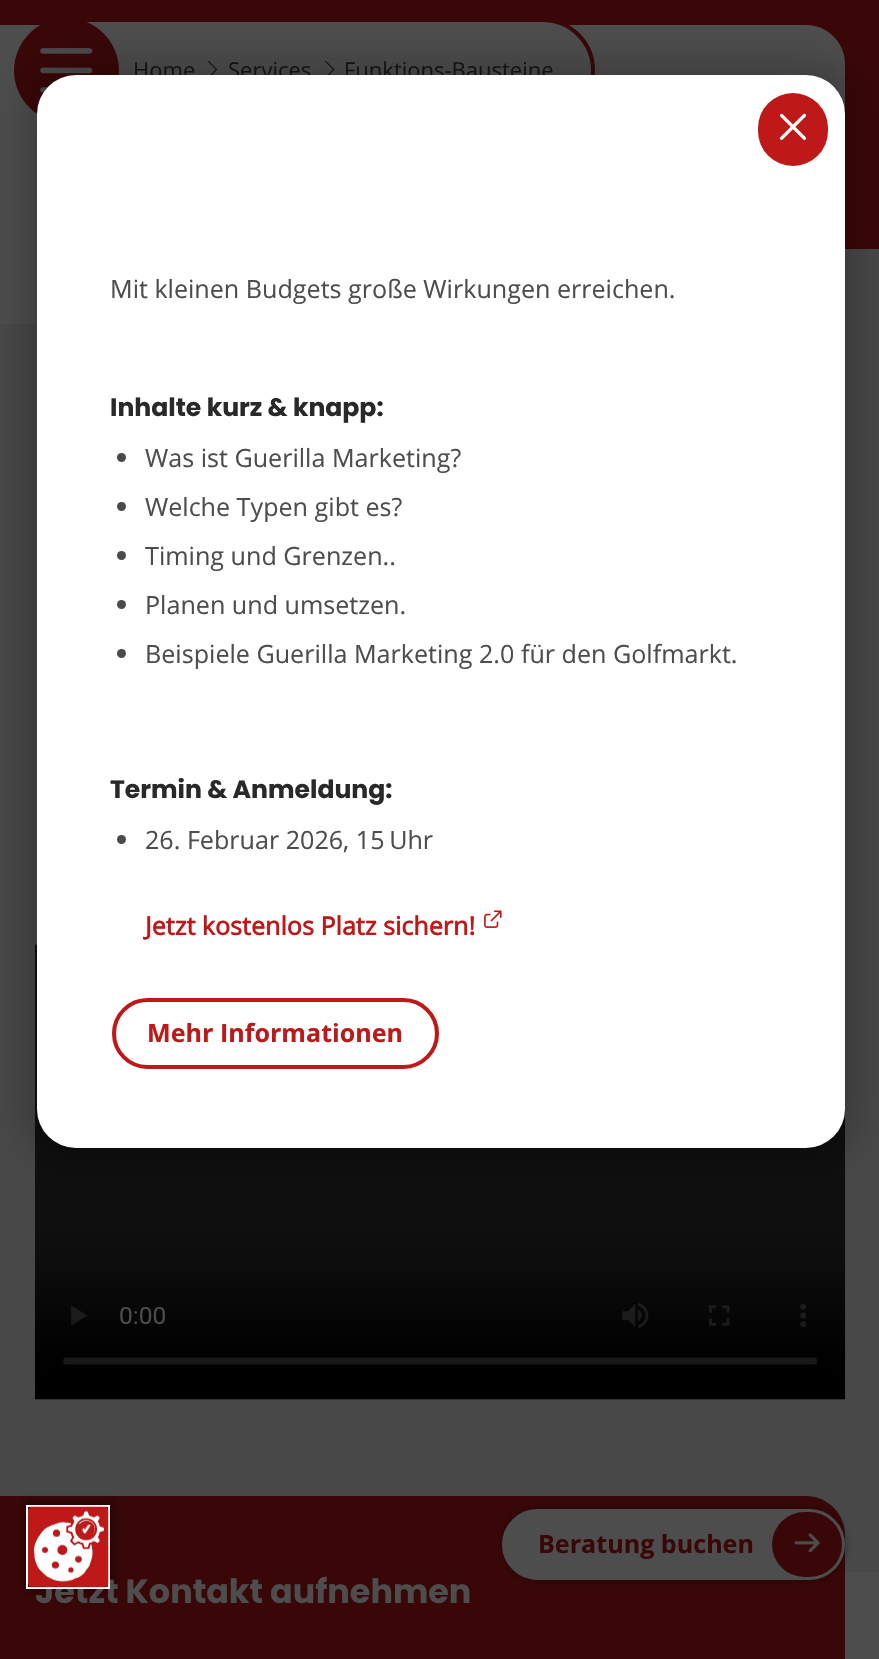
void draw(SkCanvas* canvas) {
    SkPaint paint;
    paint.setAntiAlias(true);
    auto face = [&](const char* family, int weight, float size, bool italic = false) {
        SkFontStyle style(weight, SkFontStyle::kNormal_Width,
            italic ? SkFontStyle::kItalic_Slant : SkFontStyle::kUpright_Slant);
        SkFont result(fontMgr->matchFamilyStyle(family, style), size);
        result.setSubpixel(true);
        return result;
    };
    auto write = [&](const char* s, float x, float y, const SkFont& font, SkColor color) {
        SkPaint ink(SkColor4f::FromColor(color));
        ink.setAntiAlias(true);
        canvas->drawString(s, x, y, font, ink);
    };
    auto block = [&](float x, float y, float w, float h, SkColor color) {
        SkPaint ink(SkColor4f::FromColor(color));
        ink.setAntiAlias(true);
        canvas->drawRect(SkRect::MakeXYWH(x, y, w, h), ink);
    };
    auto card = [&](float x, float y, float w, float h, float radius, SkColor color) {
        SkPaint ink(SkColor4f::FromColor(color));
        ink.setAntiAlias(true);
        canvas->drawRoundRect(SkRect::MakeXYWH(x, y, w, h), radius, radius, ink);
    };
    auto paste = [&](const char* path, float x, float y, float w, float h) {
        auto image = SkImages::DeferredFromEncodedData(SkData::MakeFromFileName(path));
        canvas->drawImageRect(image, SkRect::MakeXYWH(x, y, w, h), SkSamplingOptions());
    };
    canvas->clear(SkColorSetRGB(77, 77, 77));
    block(0, 0, 879, 249, SkColorSetRGB(57, 7, 8));
    block(0, 249, 879, 1323, SkColorSetRGB(72, 72, 72));
    paint.setColor(SkColorSetRGB(77, 77, 77));
    canvas->drawPath(SkPathBuilder().moveTo(0, 25).lineTo(806, 25).cubicTo(827.5f, 25, 845, 42.5f, 845, 64).lineTo(845, 285).cubicTo(845, 306.5f, 827.5f, 324, 806, 324).lineTo(0, 324).close().detach(), paint);
    canvas->drawPath(SkPathBuilder().moveTo(69, 20).lineTo(542.5f, 20).cubicTo(570.5f, 20, 593, 42.5f, 593, 70.5f).cubicTo(593, 98.5f, 570.5f, 121, 542.5f, 121).lineTo(69, 121).close().detach(), paint);
    paint.setStyle(SkPaint::kStroke_Style);
    paint.setStrokeWidth(4);
    paint.setColor(SkColorSetRGB(57, 7, 8));
    canvas->drawPath(SkPathBuilder().moveTo(69, 20).lineTo(542.5f, 20).cubicTo(570.5f, 20, 593, 42.5f, 593, 70.5f).cubicTo(593, 98.5f, 570.5f, 121, 542.5f, 121).lineTo(69, 121).close().detach(), paint);
    paint.setStyle(SkPaint::kFill_Style);
    canvas->drawCircle(66.5f, 70.5f, 52.5f, paint);
    paste("pic1.png", 40, 48, 53, 45);
    auto kFont1 = face("Open Sans", 400, 22);
    write("Home", 133, 78, kFont1, SkColorSetRGB(22, 22, 22));
    paste("pic2.png", 207, 60, 11, 15);
    write("Services", 228, 78, kFont1, SkColorSetRGB(22, 22, 22));
    paste("pic3.png", 325, 60, 10, 15);
    write("Funktions-Bausteine", 344, 78, kFont1, SkColorSetRGB(22, 22, 22));
    canvas->drawPath(SkPathBuilder().moveTo(0, 1496).lineTo(806, 1496).cubicTo(827.5f, 1496, 845, 1513.5f, 845, 1535).lineTo(845, 1659).cubicTo(845, 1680.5f, 827.5f, 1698, 806, 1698).lineTo(0, 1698).close().detach(), paint);
    paint.setColor(SkColorSetARGB(64, 0, 0, 0));
    paint.setMaskFilter(SkMaskFilter::MakeBlur(kNormal_SkBlurStyle, 3.5f));
    canvas->drawRoundRect(SkRect::MakeXYWH(501, 1507, 346, 75), 37.5f, 37.5f, paint);
    paint.setMaskFilter(nullptr);
    paint.setColor(SkColorSetRGB(77, 77, 77));
    canvas->drawRoundRect(SkRect::MakeXYWH(504, 1511, 339, 67), 33.5f, 33.5f, paint);
    paint.setStyle(SkPaint::kStroke_Style);
    canvas->drawRoundRect(SkRect::MakeXYWH(504, 1511, 339, 67), 33.5f, 33.5f, paint);
    auto kFont2 = face("Open Sans", 700, 25.1f);
    write("Beratung buchen", 538, 1553, kFont2, SkColorSetRGB(57, 7, 8));
    card(772, 1512, 70, 65, 32.5f, SkColorSetRGB(57, 7, 8));
    paste("pic4.png", 794, 1533, 26, 20);
    paste("pic5.png", 35, 944, 811, 456);
    paint.setStyle(SkPaint::kFill_Style);
    paint.setColor(SkColorSetARGB(51, 0, 0, 0));
    paint.setMaskFilter(SkMaskFilter::MakeBlur(kNormal_SkBlurStyle, 17.5f));
    canvas->drawRoundRect(SkRect::MakeXYWH(23, 61, 836, 1101), 53, 53, paint);
    paint.setMaskFilter(nullptr);
    card(37, 75, 808, 1073, 39, SK_ColorWHITE);
    card(758, 93, 70, 73, 35, SkColorSetRGB(190, 24, 25));
    paste("pic6.png", 779, 113, 28, 27);
    auto kFont3 = face("Open Sans", 400, 25.1f);
    write("Mit kleinen Budgets große Wirkungen erreichen.", 110, 298, kFont3, SkColorSetRGB(77, 77, 77));
    auto kFont4 = face("Poppins", 700, 25.1f);
    write("Inhalte kurz & knapp:", 110, 416, kFont4, SkColorSetRGB(41, 41, 41));
    paint.setColor(SkColorSetRGB(74, 74, 74));
    canvas->drawCircle(121.5f, 457.5f, 4.5f, paint);
    write("Was ist Guerilla Marketing?", 145, 467, kFont3, SkColorSetRGB(77, 77, 77));
    canvas->drawCircle(121.5f, 506.5f, 4.5f, paint);
    write("Welche Typen gibt es?", 145, 516, kFont3, SkColorSetRGB(77, 77, 77));
    canvas->drawCircle(121.5f, 555.5f, 4.5f, paint);
    write("Timing und Grenzen..", 145, 565, kFont3, SkColorSetRGB(77, 77, 77));
    canvas->drawCircle(121.5f, 604.5f, 4.5f, paint);
    write("Planen und umsetzen.", 145, 614, kFont3, SkColorSetRGB(77, 77, 77));
    canvas->drawCircle(121.5f, 653.5f, 4.5f, paint);
    write("Beispiele Guerilla Marketing 2.0 für den Golfmarkt.", 145, 663, kFont3, SkColorSetRGB(77, 77, 77));
    write("Termin & Anmeldung:", 110, 798, kFont4, SkColorSetRGB(41, 41, 41));
    canvas->drawCircle(121.5f, 839.5f, 4.5f, paint);
    write("26. Februar 2026, 15 Uhr", 145, 849, kFont3, SkColorSetRGB(77, 77, 77));
    auto kFont5 = face("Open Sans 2", 700, 25.1f);
    write("Jetzt kostenlos Platz sichern!", 145, 935, kFont5, SkColorSetRGB(190, 24, 25));
    paste("pic7.png", 484, 910, 18, 18);
    paint.setStyle(SkPaint::kStroke_Style);
    paint.setColor(SkColorSetRGB(190, 24, 25));
    canvas->drawRoundRect(SkRect::MakeXYWH(114, 1000, 323, 67), 33.5f, 33.5f, paint);
    write("Mehr Informationen", 147, 1042, kFont2, SkColorSetRGB(190, 24, 25));
    paint.setStyle(SkPaint::kFill_Style);
    paint.setColor(SkColorSetARGB(128, 0, 0, 0));
    paint.setMaskFilter(SkMaskFilter::MakeBlur(kNormal_SkBlurStyle, 5));
    canvas->drawRect(SkRect::MakeXYWH(25, 1503, 87, 88), paint);
    paint.setMaskFilter(nullptr);
    auto kFont6 = face("Poppins", 700, 33.4f);
    write("Jetzt Kontakt aufnehmen", 35, 1603, kFont6, SkColorSetRGB(77, 77, 77));
    paint.setStyle(SkPaint::kStroke_Style);
    paint.setStrokeWidth(2);
    paint.setColor(SK_ColorWHITE);
    canvas->drawRect(SkRect::MakeXYWH(27, 1506, 82, 82), paint);
    paste("pic8.png", 28, 1506, 81, 82);
}
